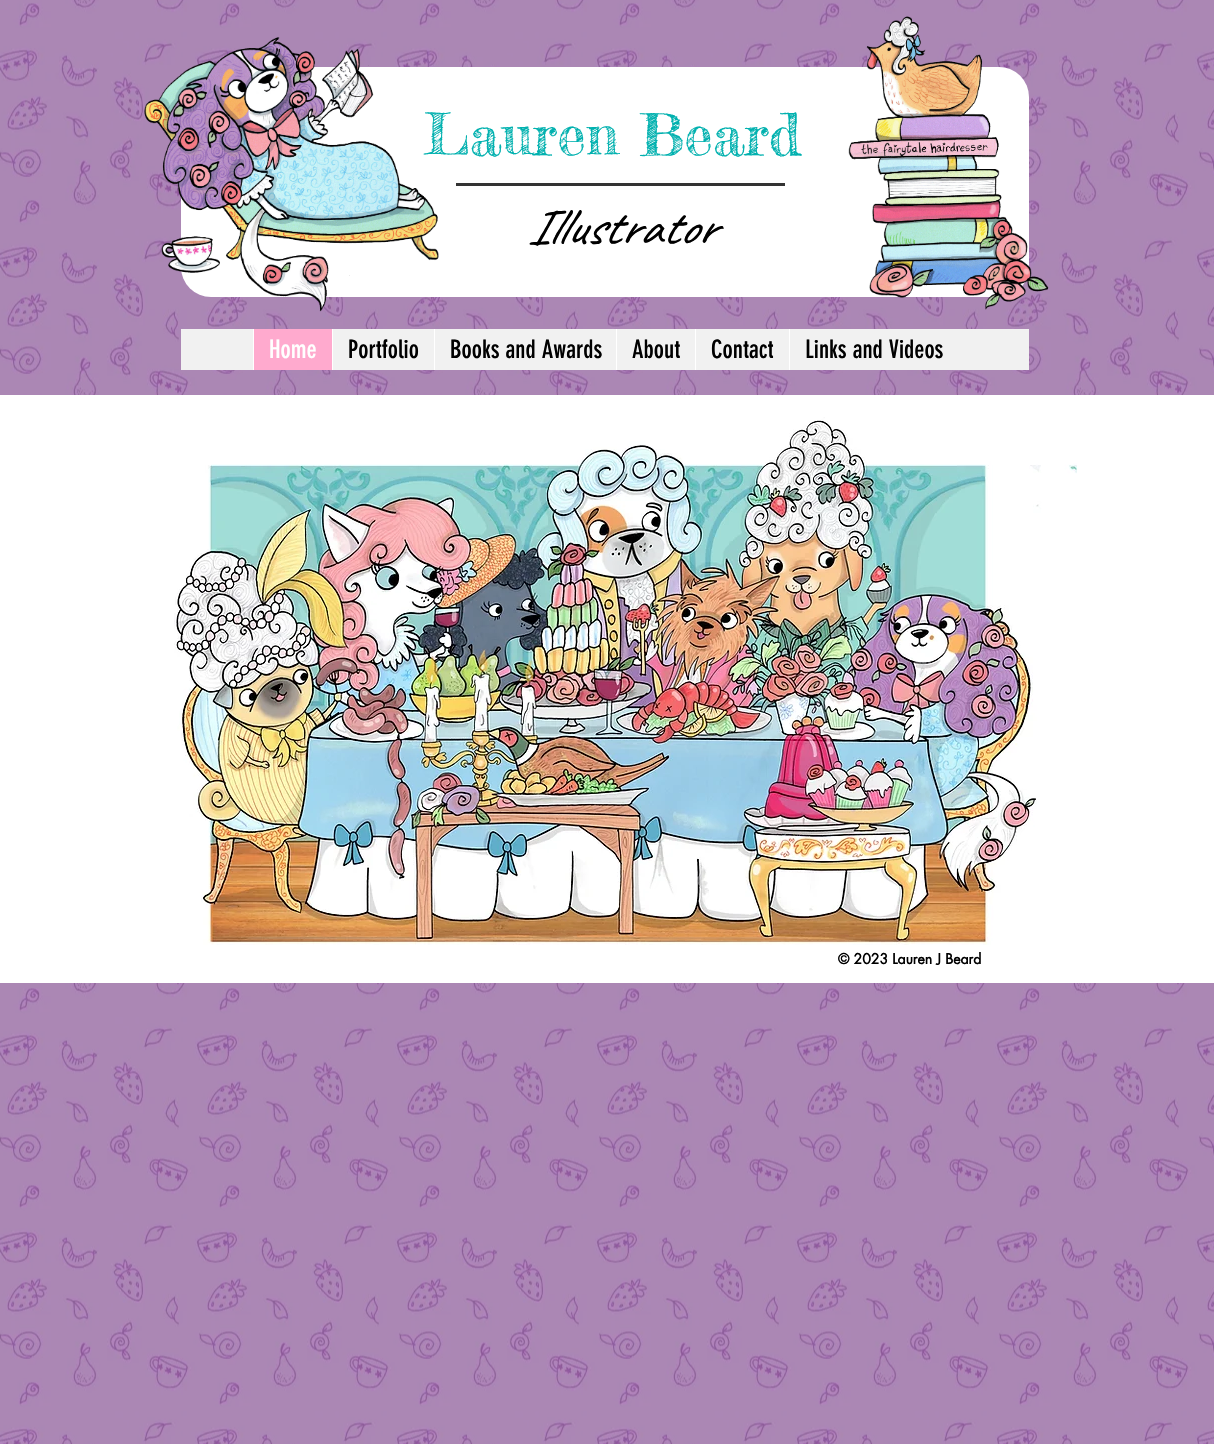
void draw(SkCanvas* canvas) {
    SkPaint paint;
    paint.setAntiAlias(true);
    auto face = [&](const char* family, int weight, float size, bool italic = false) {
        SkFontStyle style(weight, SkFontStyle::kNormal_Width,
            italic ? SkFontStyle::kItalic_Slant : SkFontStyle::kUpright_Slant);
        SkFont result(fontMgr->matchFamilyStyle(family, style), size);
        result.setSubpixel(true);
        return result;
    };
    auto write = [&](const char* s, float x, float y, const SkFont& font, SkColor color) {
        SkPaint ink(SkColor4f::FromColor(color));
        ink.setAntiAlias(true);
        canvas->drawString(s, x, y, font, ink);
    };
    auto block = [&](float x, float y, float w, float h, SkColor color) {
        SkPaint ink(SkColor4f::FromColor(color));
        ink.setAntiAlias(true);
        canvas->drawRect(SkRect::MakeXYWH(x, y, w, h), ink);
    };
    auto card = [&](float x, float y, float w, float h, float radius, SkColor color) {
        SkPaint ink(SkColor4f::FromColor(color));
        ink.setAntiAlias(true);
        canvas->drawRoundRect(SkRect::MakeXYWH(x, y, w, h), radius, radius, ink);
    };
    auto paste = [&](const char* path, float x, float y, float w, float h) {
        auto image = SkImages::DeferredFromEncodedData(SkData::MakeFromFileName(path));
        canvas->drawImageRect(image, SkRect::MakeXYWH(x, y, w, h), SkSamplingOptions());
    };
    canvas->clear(SkColorSetRGB(163, 130, 172));
    paste("pic1.png", 0, 0, 1214, 1444);
    card(181, 67, 848, 230, 30, SK_ColorWHITE);
    auto kFont1 = face("Fredericka the Great", 400, 57);
    write("Lauren Beard", 424, 155, kFont1, SkColorSetRGB(1, 177, 175));
    paste("pic2.png", 144, 37, 295, 275);
    paste("pic3.png", 848, 16, 201, 294);
    block(456, 183, 329, 3, SkColorSetRGB(51, 51, 51));
    auto kFont2 = face("Caveat", 400, 52, true);
    write("Illustrator", 527, 244, kFont2, SK_ColorBLACK);
    block(181, 329, 848, 41, SkColorSetRGB(241, 241, 241));
    block(254, 329, 78, 41, SkColorSetRGB(255, 170, 206));
    block(253, 329, 1, 41, SK_ColorWHITE);
    auto kFont3 = face("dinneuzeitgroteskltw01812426", 400, 25);
    write("Home", 269, 358, kFont3, SK_ColorWHITE);
    block(332, 329, 1, 41, SK_ColorWHITE);
    write("Portfolio", 348, 358, kFont3, SK_ColorBLACK);
    block(434, 329, 1, 41, SK_ColorWHITE);
    write("Books and Awards", 450, 358, kFont3, SK_ColorBLACK);
    block(616, 329, 1, 41, SK_ColorWHITE);
    write("About", 632, 358, kFont3, SK_ColorBLACK);
    block(695, 329, 1, 41, SK_ColorWHITE);
    write("Contact", 711, 358, kFont3, SK_ColorBLACK);
    block(789, 329, 1, 41, SK_ColorWHITE);
    write("Links and Videos", 805, 358, kFont3, SK_ColorBLACK);
    block(0, 395, 1214, 588, SK_ColorWHITE);
    paste("pic4.png", 174, 417, 903, 528);
    auto kFont4 = face("futura", 700, 14);
    write("© 2023 Lauren J Beard", 838, 964, kFont4, SK_ColorBLACK);
}
